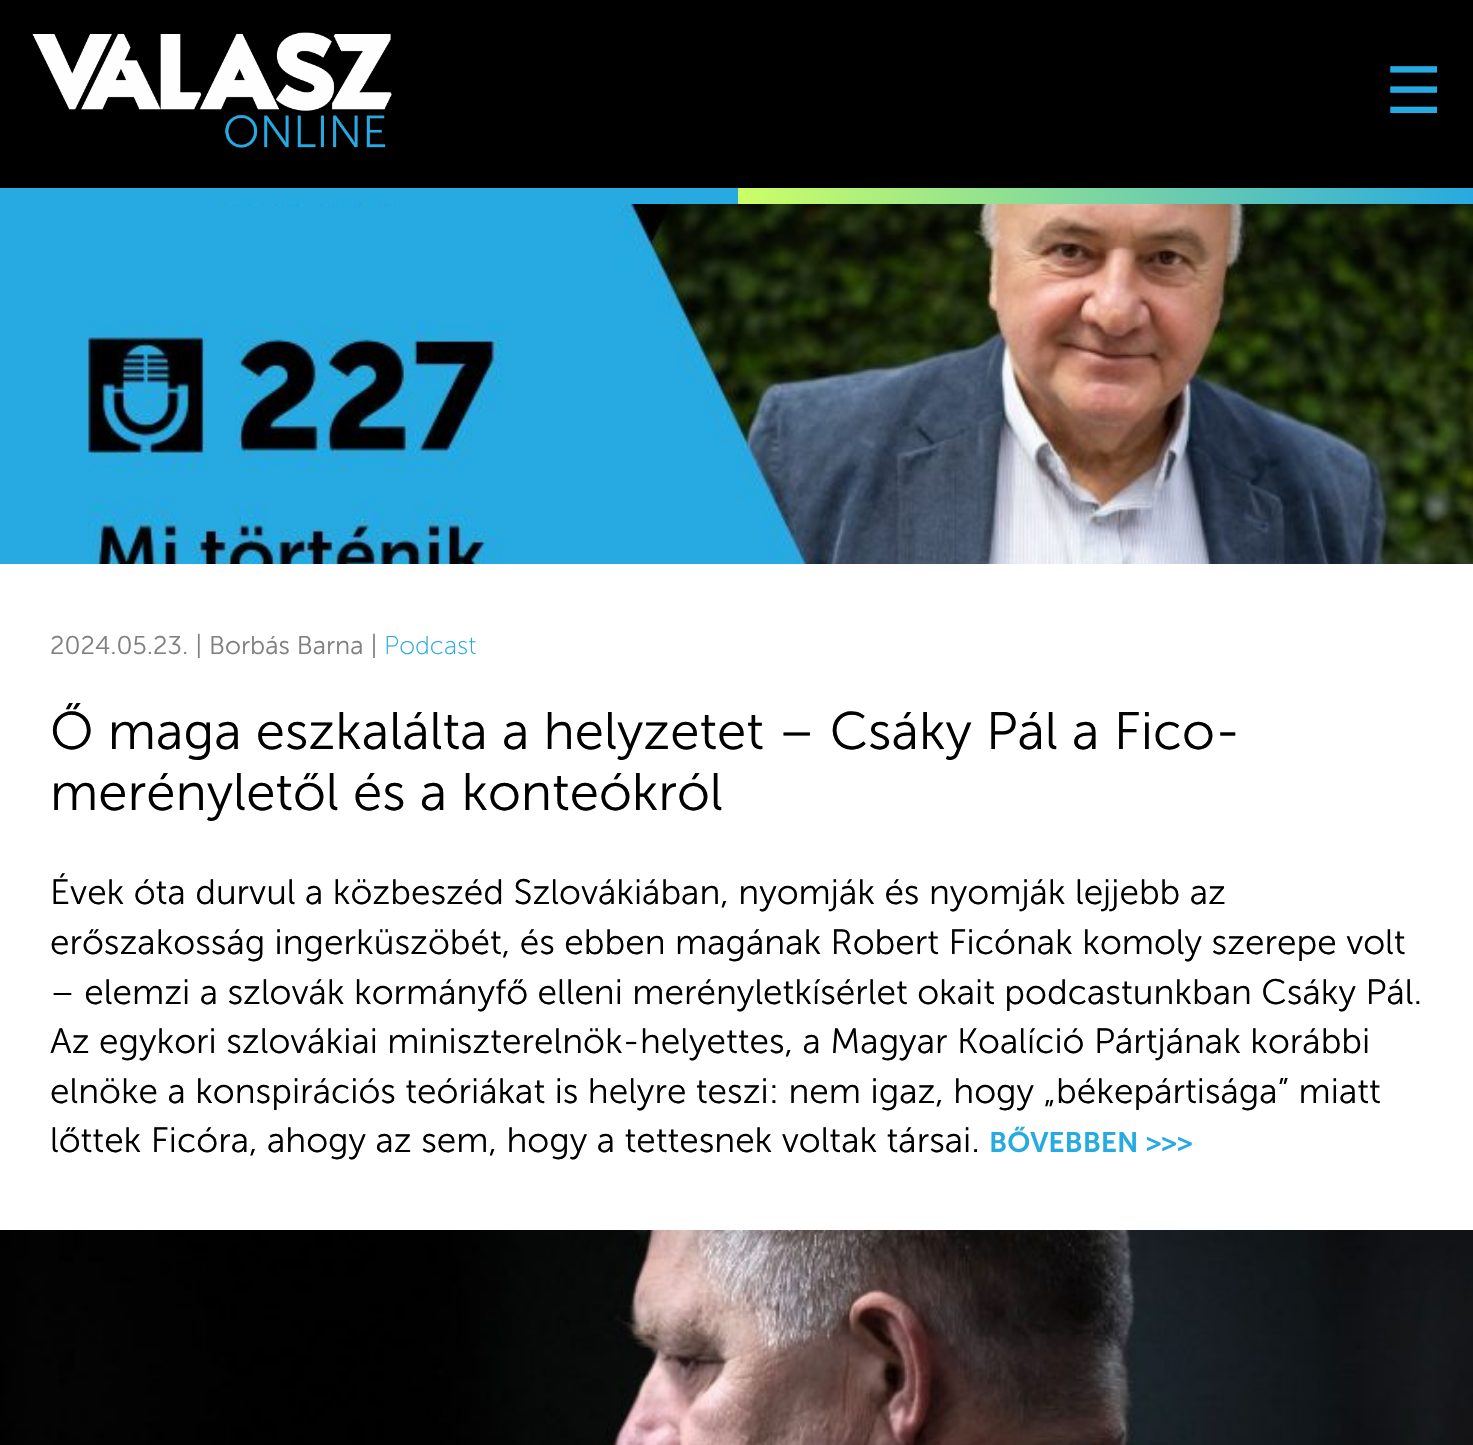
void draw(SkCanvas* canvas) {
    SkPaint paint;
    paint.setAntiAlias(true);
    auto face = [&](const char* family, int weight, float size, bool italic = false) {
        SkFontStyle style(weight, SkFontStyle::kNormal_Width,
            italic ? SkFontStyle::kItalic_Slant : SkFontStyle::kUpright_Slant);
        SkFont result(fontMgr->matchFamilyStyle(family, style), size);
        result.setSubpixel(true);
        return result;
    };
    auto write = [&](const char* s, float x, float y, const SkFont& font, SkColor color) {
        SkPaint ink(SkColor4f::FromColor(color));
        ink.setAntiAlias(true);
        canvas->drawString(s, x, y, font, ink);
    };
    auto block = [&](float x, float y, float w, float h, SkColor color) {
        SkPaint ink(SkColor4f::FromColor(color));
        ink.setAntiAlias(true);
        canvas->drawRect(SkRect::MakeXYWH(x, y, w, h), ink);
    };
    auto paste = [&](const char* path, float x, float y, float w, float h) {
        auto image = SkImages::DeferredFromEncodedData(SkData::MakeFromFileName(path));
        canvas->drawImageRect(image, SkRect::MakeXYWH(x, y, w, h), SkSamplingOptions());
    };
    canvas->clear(SK_ColorBLACK);
    paste("pic1.png", 32, 32, 360, 116);
    auto kFont1 = face("DejaVu Sans", 400, 64);
    write("☰", 1385, 113, kFont1, SkColorSetRGB(39, 170, 225));
    block(0, 188, 738, 16, SkColorSetRGB(39, 170, 225));
    {
        const SkColor colors[] = {SkColorSetRGB(204, 255, 102), SkColorSetRGB(39, 170, 225)};
        const float stops[] = {0, 1};
        const SkPoint ends[] = {{738, 196}, {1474, 196}};
        paint.setShader(SkGradientShader::MakeLinear(ends, colors, stops, 2, SkTileMode::kClamp));
        paint.setAlpha(255);
    }
    canvas->drawRect(SkRect::MakeXYWH(738, 188, 735, 16), paint);
    block(0, 564, 1473, 666, SK_ColorWHITE);
    paste("pic2.png", 0, 204, 1473, 360);
    auto kFont2 = face("Museo Sans", 300, 25.6f);
    write("2024.05.23. | Borbás Barna |", 50, 654, kFont2, SkColorSetRGB(128, 128, 128));
    auto kFont3 = face("Museo Sans", 200, 25.6f);
    write("Podcast", 384, 654, kFont3, SkColorSetRGB(39, 170, 225));
    auto kFont4 = face("Museo Sans", 300, 52.8f);
    write("Ő maga eszkalálta a helyzetet – Csáky Pál a Fico-", 50, 749, kFont4, SK_ColorBLACK);
    write("merényletől és a konteókról", 50, 810, kFont4, SK_ColorBLACK);
    auto kFont5 = face("Museo Sans", 300, 35.2f);
    write("Évek óta durvul a közbeszéd Szlovákiában, nyomják és nyomják lejjebb az", 50, 904, kFont5, SK_ColorBLACK);
    write("erőszakosság ingerküszöbét, és ebben magának Robert Ficónak komoly szerepe volt", 50, 954, kFont5, SK_ColorBLACK);
    write("– elemzi a szlovák kormányfő elleni merényletkísérlet okait podcastunkban Csáky Pál.", 50, 1004, kFont5, SK_ColorBLACK);
    write("Az egykori szlovákiai miniszterelnök-helyettes, a Magyar Koalíció Pártjának korábbi", 50, 1053, kFont5, SK_ColorBLACK);
    write("elnöke a konspirációs teóriákat is helyre teszi: nem igaz, hogy „békepártisága” miatt", 50, 1103, kFont5, SK_ColorBLACK);
    write("lőttek Ficóra, ahogy az sem, hogy a tettesnek voltak társai.", 50, 1152, kFont5, SK_ColorBLACK);
    auto kFont6 = face("Museo Sans", 600, 28.25f);
    write("BŐVEBBEN >>>", 989, 1152, kFont6, SkColorSetRGB(39, 170, 225));
    paste("pic3.png", 0, 1230, 1473, 215);
}
